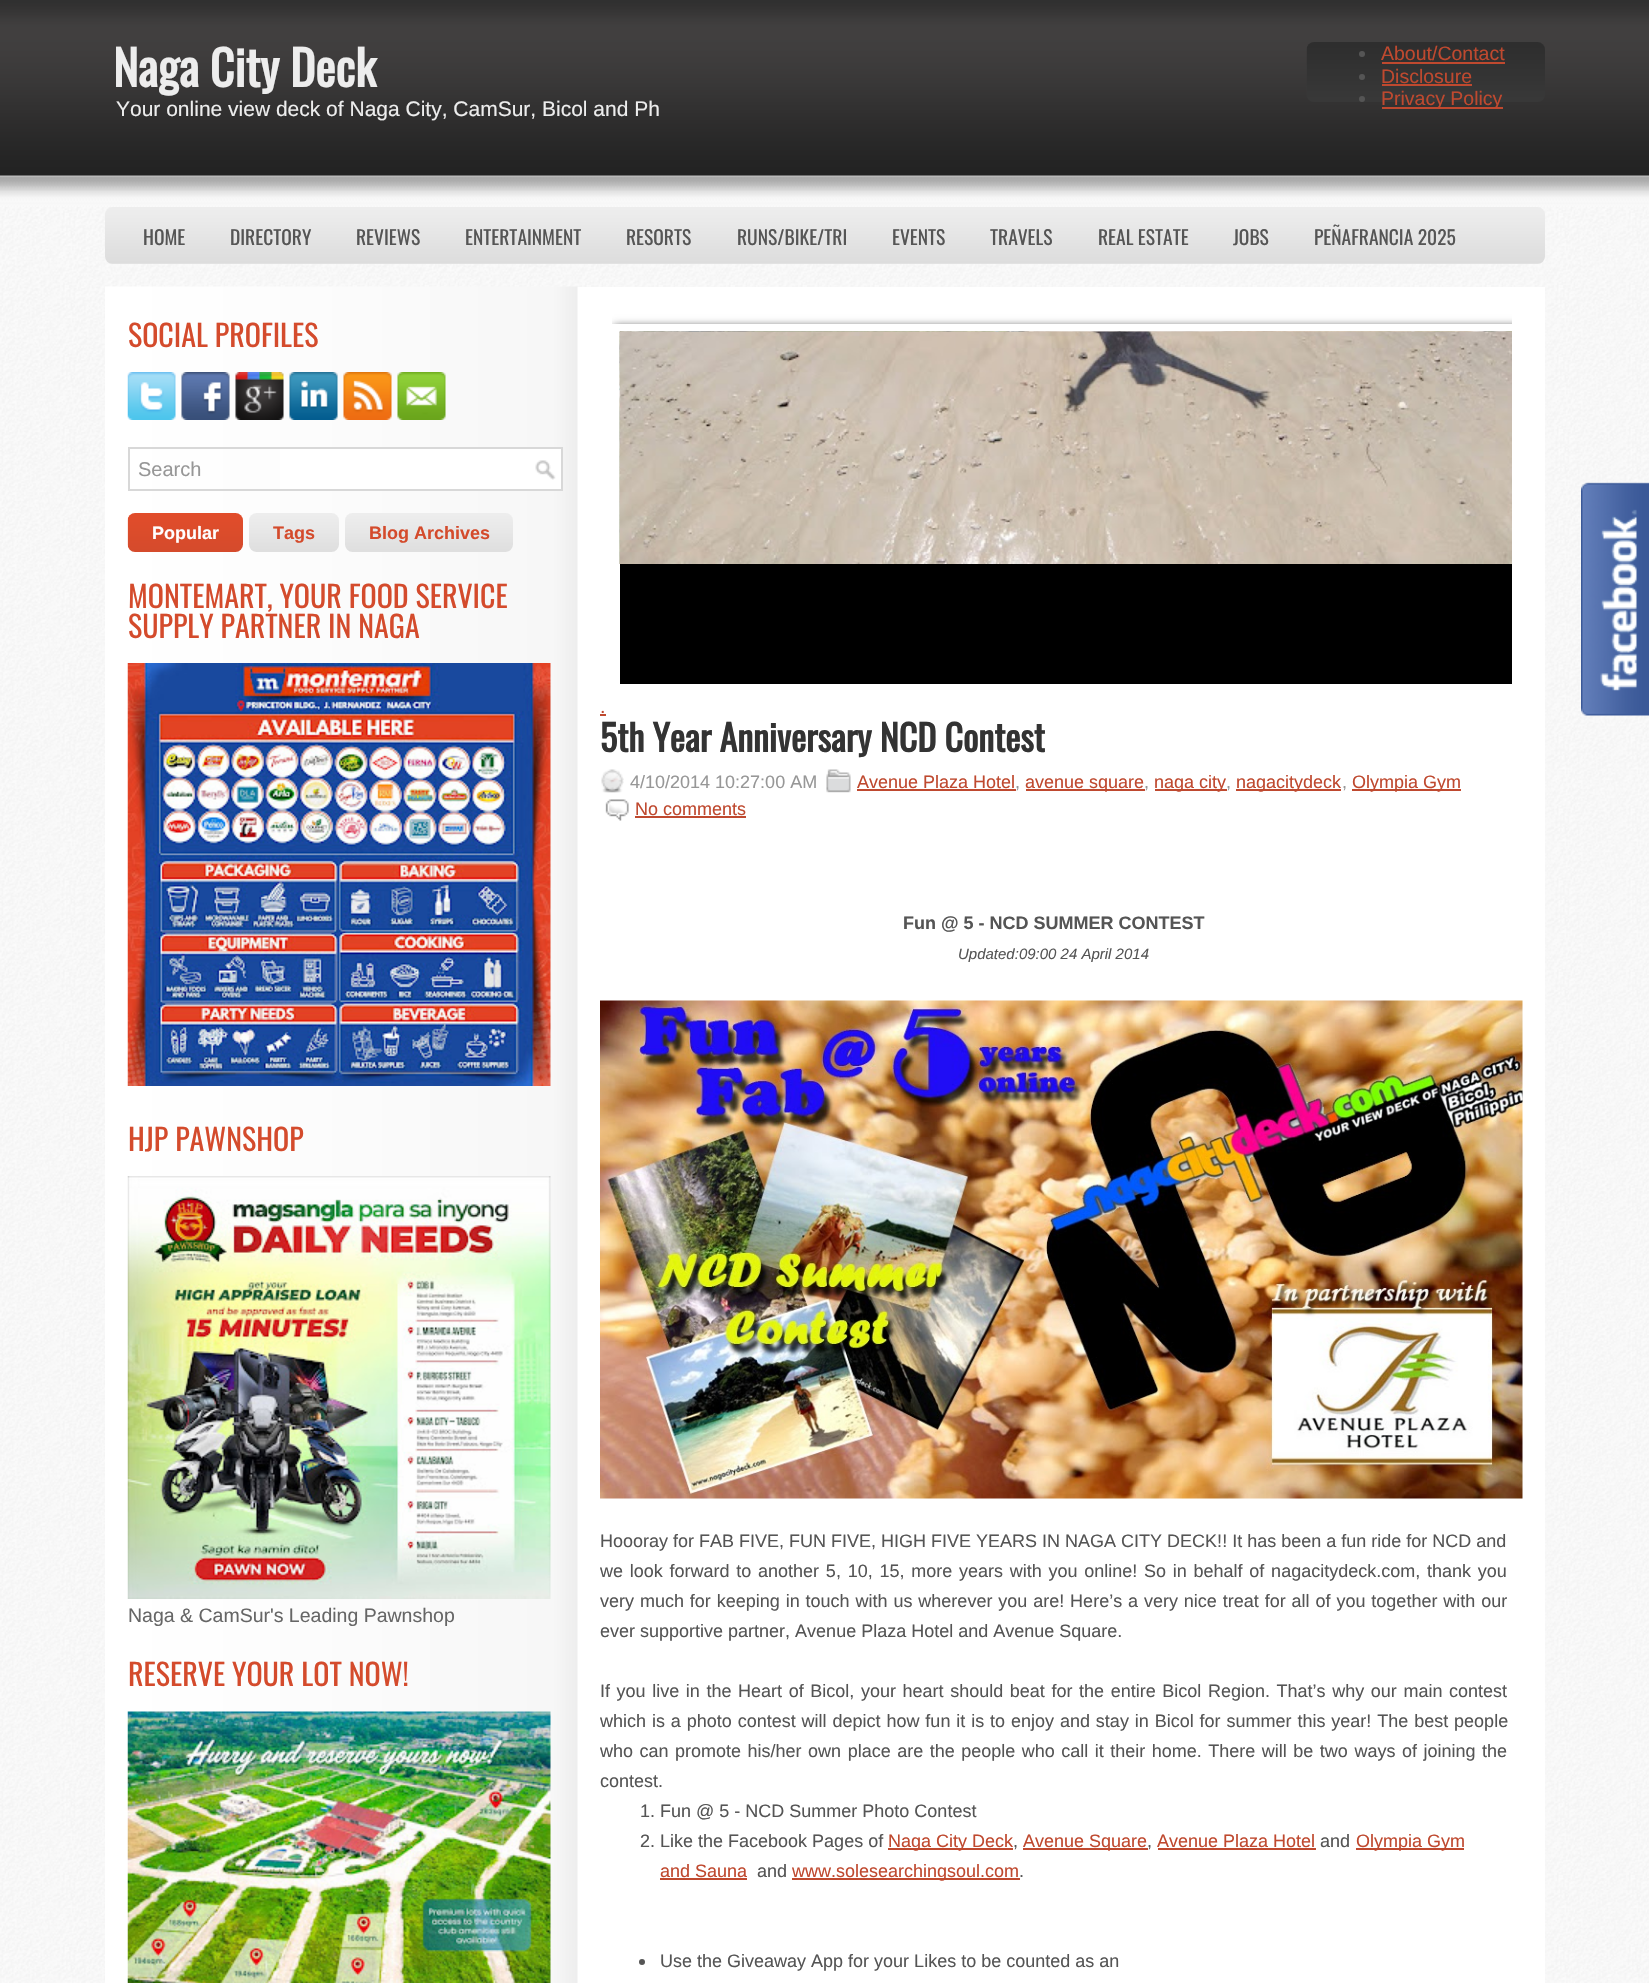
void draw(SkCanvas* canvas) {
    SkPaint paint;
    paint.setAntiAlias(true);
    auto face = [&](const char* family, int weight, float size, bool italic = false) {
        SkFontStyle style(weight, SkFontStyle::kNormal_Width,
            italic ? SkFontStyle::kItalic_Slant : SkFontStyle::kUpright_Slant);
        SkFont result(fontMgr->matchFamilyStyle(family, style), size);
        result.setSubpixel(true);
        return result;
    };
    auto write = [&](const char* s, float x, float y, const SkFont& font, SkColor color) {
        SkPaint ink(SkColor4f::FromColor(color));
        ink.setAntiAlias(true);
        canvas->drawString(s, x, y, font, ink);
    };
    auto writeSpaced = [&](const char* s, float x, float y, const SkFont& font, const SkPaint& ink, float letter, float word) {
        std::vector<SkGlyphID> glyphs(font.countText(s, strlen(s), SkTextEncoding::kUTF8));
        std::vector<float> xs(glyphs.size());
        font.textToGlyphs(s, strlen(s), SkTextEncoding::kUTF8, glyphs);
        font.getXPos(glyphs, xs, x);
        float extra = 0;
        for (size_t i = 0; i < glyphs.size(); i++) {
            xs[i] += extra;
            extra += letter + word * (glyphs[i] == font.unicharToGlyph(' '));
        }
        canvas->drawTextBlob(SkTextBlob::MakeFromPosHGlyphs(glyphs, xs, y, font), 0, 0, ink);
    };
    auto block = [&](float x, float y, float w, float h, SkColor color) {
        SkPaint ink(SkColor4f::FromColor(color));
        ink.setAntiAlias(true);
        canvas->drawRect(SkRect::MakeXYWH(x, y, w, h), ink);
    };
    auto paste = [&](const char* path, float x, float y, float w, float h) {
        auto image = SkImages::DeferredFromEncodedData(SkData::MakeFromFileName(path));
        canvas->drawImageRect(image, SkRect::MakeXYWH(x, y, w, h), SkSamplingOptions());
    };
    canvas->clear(SK_ColorWHITE);
    paste("pic1.png", 0, 207, 1649, 1776);
    paste("pic2.png", 0, 0, 1649, 207);
    auto kFont1 = face("Oswald", 700, 48);
    write("Naga City Deck", 113, 87, kFont1, SkColorSetRGB(237, 237, 237));
    auto kFont2 = face("Liberation Sans", 400, 21);
    write("Your online view deck of Naga City, CamSur, Bicol and Ph", 116, 116, kFont2, SkColorSetRGB(237, 237, 237));
    paste("pic3.png", 1306, 42, 239, 60);
    paint.setColor(SkColorSetRGB(85, 85, 85));
    canvas->drawCircle(1362, 54, 3, paint);
    auto kFont3 = face("Liberation Sans", 400, 19.5f);
    write("About/Contact", 1381, 60, kFont3, SkColorSetRGB(191, 73, 47));
    block(1382, 62, 123, 2, SkColorSetRGB(191, 73, 47));
    canvas->drawCircle(1362, 77, 3, paint);
    write("Disclosure", 1381, 83, kFont3, SkColorSetRGB(191, 73, 47));
    block(1382, 84, 90, 2, SkColorSetRGB(191, 73, 47));
    canvas->drawCircle(1362, 99, 3, paint);
    block(1382, 107, 121, 2, SkColorSetRGB(191, 73, 47));
    write("Privacy Policy", 1381, 105, kFont3, SkColorSetRGB(191, 73, 47));
    paste("pic4.png", 105, 207, 1440, 57);
    auto kFont4 = face("Oswald", 400, 19.5f);
    write("HOME", 143, 245, kFont4, SkColorSetRGB(85, 85, 85));
    write("DIRECTORY", 230, 245, kFont4, SkColorSetRGB(85, 85, 85));
    write("REVIEWS", 356, 245, kFont4, SkColorSetRGB(85, 85, 85));
    write("ENTERTAINMENT", 465, 245, kFont4, SkColorSetRGB(85, 85, 85));
    write("RESORTS", 626, 245, kFont4, SkColorSetRGB(85, 85, 85));
    write("RUNS/BIKE/TRI", 737, 245, kFont4, SkColorSetRGB(85, 85, 85));
    write("EVENTS", 892, 245, kFont4, SkColorSetRGB(85, 85, 85));
    write("TRAVELS", 990, 245, kFont4, SkColorSetRGB(85, 85, 85));
    write("REAL ESTATE", 1098, 245, kFont4, SkColorSetRGB(85, 85, 85));
    write("JOBS", 1233, 245, kFont4, SkColorSetRGB(85, 85, 85));
    write("PEÑAFRANCIA 2025", 1314, 245, kFont4, SkColorSetRGB(85, 85, 85));
    block(577, 287, 968, 1696, SK_ColorWHITE);
    paste("pic5.png", 105, 286, 473, 1697);
    auto kFont5 = face("Oswald", 400, 30);
    write("SOCIAL PROFILES", 128, 347, kFont5, SkColorSetRGB(212, 75, 44));
    paste("pic6.png", 127, 372, 49, 48);
    paste("pic7.png", 181, 372, 49, 48);
    paste("pic8.png", 235, 372, 49, 48);
    paste("pic9.png", 289, 372, 49, 48);
    paste("pic10.png", 343, 372, 49, 48);
    paste("pic11.png", 397, 372, 49, 48);
    block(280, 449, 281, 40, SK_ColorWHITE);
    paste("pic12.png", 535, 460, 21, 20);
    paint.setStyle(SkPaint::kStroke_Style);
    paint.setStrokeWidth(2);
    paint.setColor(SkColorSetRGB(216, 216, 216));
    canvas->drawRect(SkRect::MakeXYWH(129, 448, 433, 42), paint);
    auto kFont6 = face("Liberation Sans", 400, 20);
    write("Search", 138, 476, kFont6, SkColorSetRGB(151, 151, 151));
    paste("pic13.png", 127, 513, 116, 39);
    auto kFont7 = face("Liberation Sans", 700, 18);
    write("Popular", 152, 539, kFont7, SK_ColorWHITE);
    paste("pic14.png", 249, 513, 90, 39);
    write("Tags", 273, 539, kFont7, SkColorSetRGB(212, 75, 44));
    paste("pic15.png", 345, 513, 168, 39);
    write("Blog Archives", 369, 539, kFont7, SkColorSetRGB(212, 75, 44));
    write("MONTEMART, YOUR FOOD SERVICE", 128, 608, kFont5, SkColorSetRGB(212, 75, 44));
    write("SUPPLY PARTNER IN NAGA", 128, 638, kFont5, SkColorSetRGB(212, 75, 44));
    paste("pic16.png", 127, 663, 424, 423);
    write("HJP PAWNSHOP", 128, 1151, kFont5, SkColorSetRGB(212, 75, 44));
    paste("pic17.png", 127, 1176, 424, 423);
    write("Naga & CamSur's Leading Pawnshop", 128, 1622, kFont3, SkColorSetRGB(102, 102, 102));
    write("RESERVE YOUR LOT NOW!", 128, 1686, kFont5, SkColorSetRGB(212, 75, 44));
    paste("pic18.png", 127, 1711, 424, 272);
    block(600, 714, 6, 2, SkColorSetRGB(191, 73, 47));
    canvas->save();
    canvas->clipRect(SkRect::MakeXYWH(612, 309, 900, 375));
    paint.setStyle(SkPaint::kFill_Style);
    paint.setColor(SkColorSetARGB(179, 0, 0, 0));
    paint.setMaskFilter(SkMaskFilter::MakeBlur(kNormal_SkBlurStyle, 4));
    canvas->drawRect(SkRect::MakeXYWH(614, 326, 990, 390), paint);
    paint.setMaskFilter(nullptr);
    canvas->restore();
    block(620, 564, 892, 120, SK_ColorBLACK);
    canvas->save();
    canvas->clipRect(SkRect::MakeXYWH(612, 309, 900, 375));
    paint.setStyle(SkPaint::kStroke_Style);
    paint.setStrokeWidth(8);
    paint.setColor(SK_ColorWHITE);
    canvas->drawRect(SkRect::MakeXYWH(616, 328, 982, 382), paint);
    canvas->restore();
    paste("pic19.png", 1581, 482, 68, 234);
    paste("pic20.png", 619, 331, 893, 233);
    paste("pic21.png", 619, 331, 893, 233);
    write(".", 600, 713, kFont3, SkColorSetRGB(191, 73, 47));
    auto kFont8 = face("Oswald", 700, 36);
    write("5th Year Anniversary NCD Contest", 600, 752, kFont8, SkColorSetRGB(51, 51, 51));
    paste("pic22.png", 601, 769, 23, 24);
    auto kFont9 = face("Liberation Sans", 400, 18);
    write("4/10/2014 10:27:00 AM", 630, 788, kFont9, SkColorSetRGB(151, 151, 151));
    paste("pic23.png", 826, 769, 25, 24);
    write("Avenue Plaza Hotel", 857, 788, kFont9, SkColorSetRGB(191, 73, 47));
    write(",", 1015, 788, kFont9, SkColorSetRGB(151, 151, 151));
    block(857, 789, 159, 2, SkColorSetRGB(191, 73, 47));
    block(1026, 789, 119, 2, SkColorSetRGB(191, 73, 47));
    write("avenue square", 1025, 788, kFont9, SkColorSetRGB(191, 73, 47));
    write(",", 1144, 788, kFont9, SkColorSetRGB(151, 151, 151));
    block(1155, 789, 72, 2, SkColorSetRGB(191, 73, 47));
    write("naga city", 1154, 788, kFont9, SkColorSetRGB(191, 73, 47));
    write(",", 1226, 788, kFont9, SkColorSetRGB(151, 151, 151));
    block(1236, 789, 105, 2, SkColorSetRGB(191, 73, 47));
    write("nagacitydeck", 1236, 788, kFont9, SkColorSetRGB(191, 73, 47));
    write(",", 1342, 788, kFont9, SkColorSetRGB(151, 151, 151));
    block(1352, 789, 109, 2, SkColorSetRGB(191, 73, 47));
    write("Olympia Gym", 1352, 788, kFont9, SkColorSetRGB(191, 73, 47));
    paste("pic24.png", 605, 799, 24, 22);
    write("No comments", 635, 815, kFont9, SkColorSetRGB(191, 73, 47));
    block(635, 816, 111, 2, SkColorSetRGB(191, 73, 47));
    write("Fun @ 5 - NCD SUMMER CONTEST", 903, 929, kFont7, SkColorSetRGB(85, 85, 85));
    auto kFont10 = face("Liberation Sans", 400, 15, true);
    write("Updated:09:00 24 April 2014", 958, 959, kFont10, SkColorSetRGB(85, 85, 85));
    paste("pic25.png", 600, 1000, 923, 499);
    write("Hoooray for FAB FIVE, FUN FIVE, HIGH FIVE YEARS IN NAGA CITY DECK!! It has been a fun ride for NCD and", 600, 1547, kFont9, SkColorSetRGB(85, 85, 85));
    paint.setStyle(SkPaint::kFill_Style);
    paint.setColor(SkColorSetRGB(85, 85, 85));
    writeSpaced("we look forward to another 5, 10, 15, more years with you online! So in behalf of nagacitydeck.com, thank you", 600, 1577, kFont9, paint, 0, 1.75f);
    writeSpaced("very much for keeping in touch with us wherever you are! Here’s a very nice treat for all of you together with our", 600, 1607, kFont9, paint, 0, 0.9f);
    write("ever supportive partner, Avenue Plaza Hotel and Avenue Square.", 600, 1637, kFont9, SkColorSetRGB(85, 85, 85));
    writeSpaced("If you live in the Heart of Bicol, your heart should beat for the entire Bicol Region. That’s why our main contest", 600, 1697, kFont9, paint, 0, 1.6f);
    writeSpaced("which is a photo contest will depict how fun it is to enjoy and stay in Bicol for summer this year! The best people", 600, 1727, kFont9, paint, 0, 0.9f);
    writeSpaced("who can promote his/her own place are the people who call it their home. There will be two ways of joining the", 600, 1757, kFont9, paint, 0, 1.5f);
    write("contest.", 600, 1787, kFont9, SkColorSetRGB(85, 85, 85));
    write("1. Fun @ 5 - NCD Summer Photo Contest", 640, 1817, kFont9, SkColorSetRGB(85, 85, 85));
    write("2. Like the Facebook Pages of", 640, 1847, kFont9, SkColorSetRGB(85, 85, 85));
    block(888, 1848, 125, 2, SkColorSetRGB(191, 73, 47));
    write("Naga City Deck", 888, 1847, kFont9, SkColorSetRGB(191, 73, 47));
    write(",", 1013, 1847, kFont9, SkColorSetRGB(85, 85, 85));
    block(1023, 1848, 125, 2, SkColorSetRGB(191, 73, 47));
    write("Avenue Square", 1023, 1847, kFont9, SkColorSetRGB(191, 73, 47));
    write(",", 1147, 1847, kFont9, SkColorSetRGB(85, 85, 85));
    block(1158, 1848, 158, 2, SkColorSetRGB(191, 73, 47));
    write("Avenue Plaza Hotel", 1157, 1847, kFont9, SkColorSetRGB(191, 73, 47));
    write("and", 1320, 1847, kFont9, SkColorSetRGB(85, 85, 85));
    block(1356, 1848, 108, 2, SkColorSetRGB(191, 73, 47));
    write("Olympia Gym", 1356, 1847, kFont9, SkColorSetRGB(191, 73, 47));
    write("and Sauna", 660, 1877, kFont9, SkColorSetRGB(191, 73, 47));
    block(660, 1878, 87, 2, SkColorSetRGB(191, 73, 47));
    write("and", 757, 1877, kFont9, SkColorSetRGB(85, 85, 85));
    block(792, 1878, 228, 2, SkColorSetRGB(191, 73, 47));
    write("www.solesearchingsoul.com", 792, 1877, kFont9, SkColorSetRGB(191, 73, 47));
    write(".", 1019, 1877, kFont9, SkColorSetRGB(85, 85, 85));
    canvas->drawCircle(642, 1962, 3, paint);
    write("Use the Giveaway App for your Likes to be counted as an", 660, 1967, kFont9, SkColorSetRGB(85, 85, 85));
}
